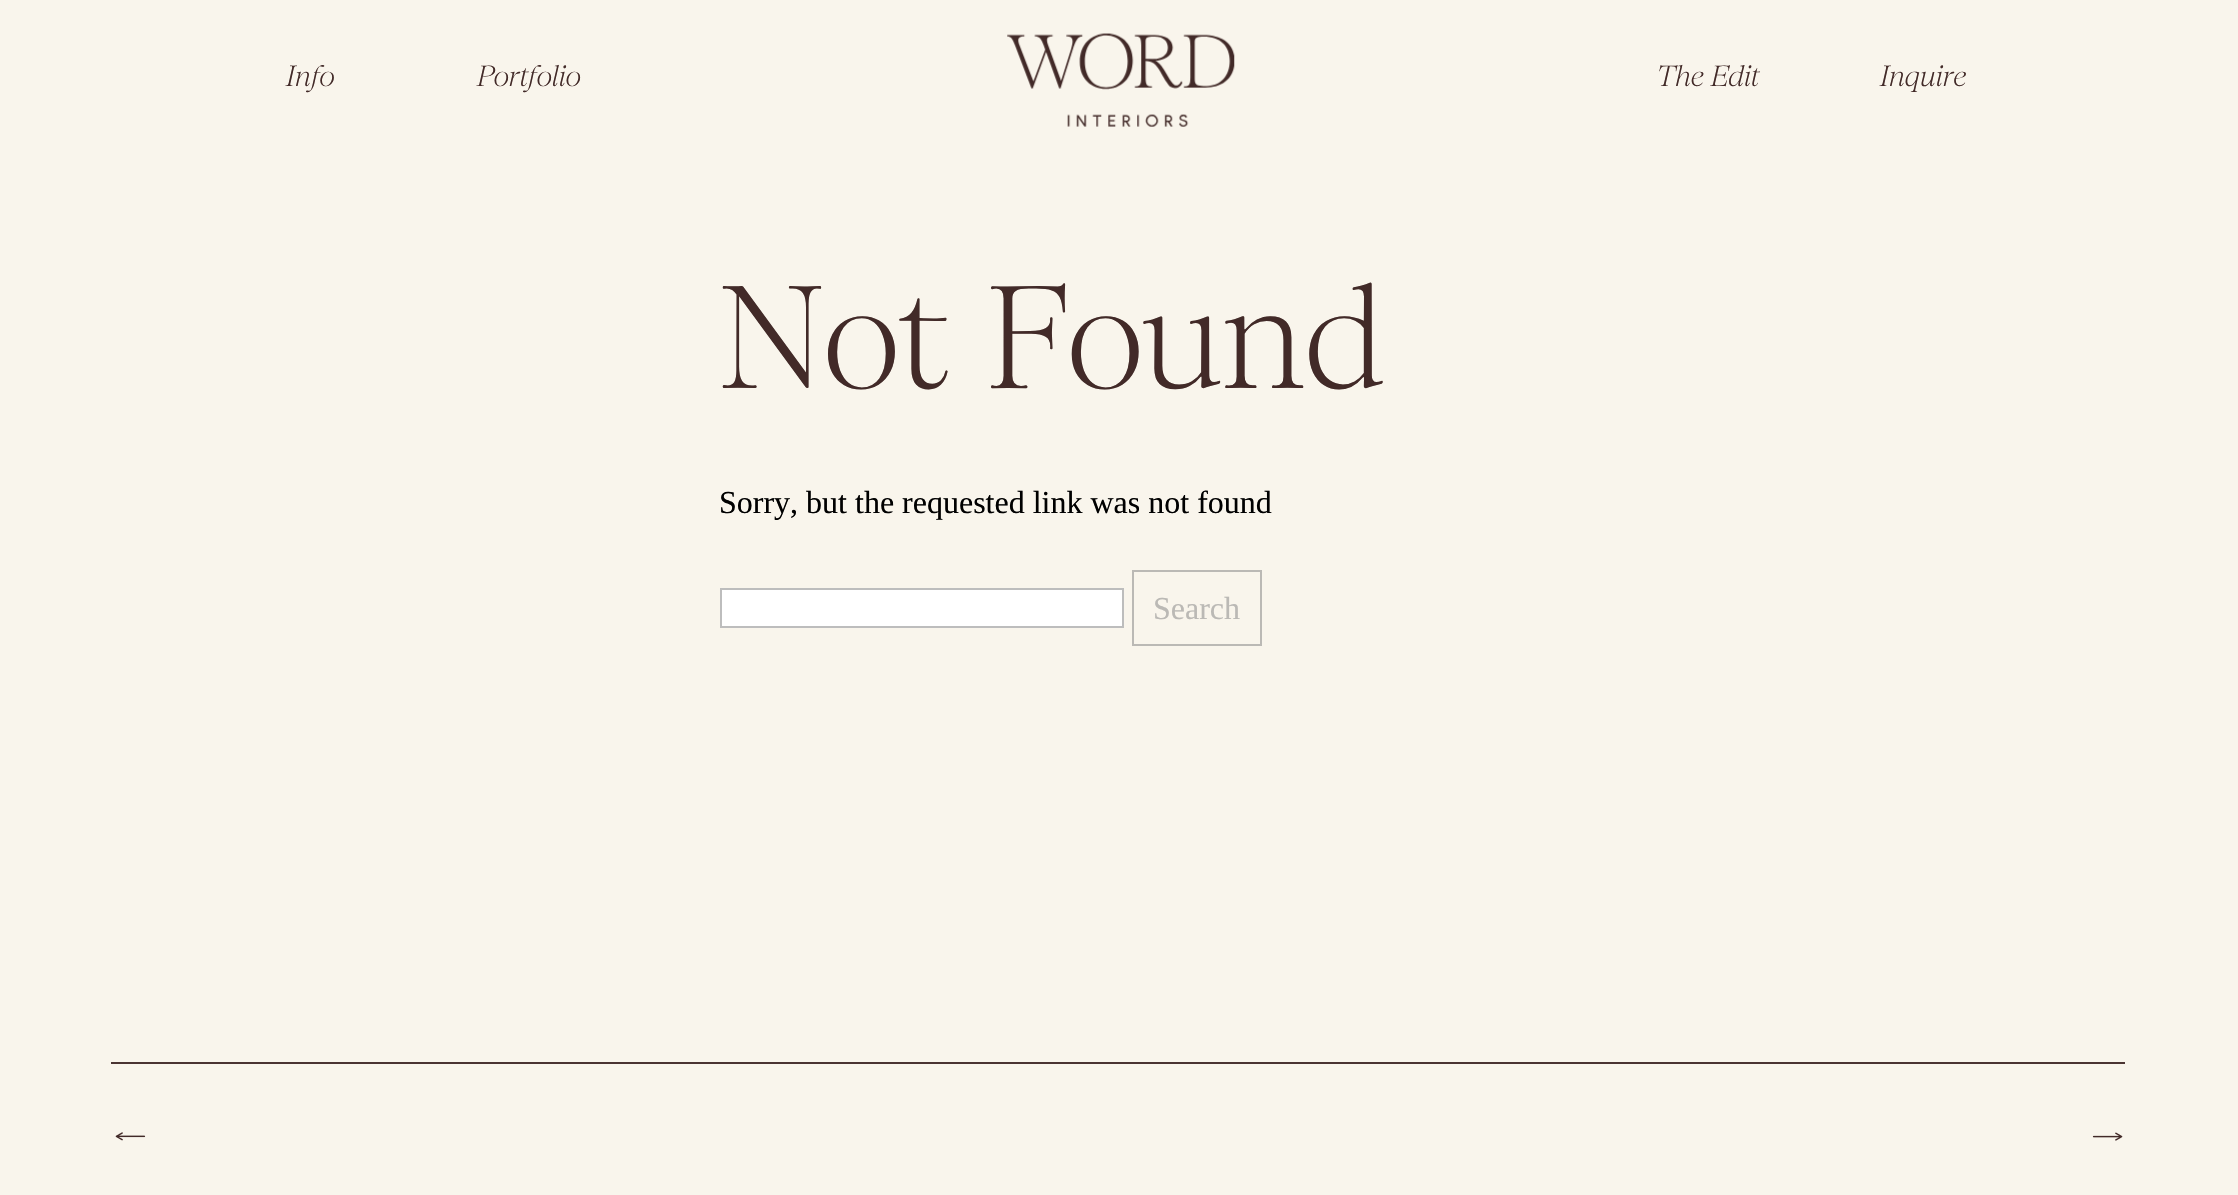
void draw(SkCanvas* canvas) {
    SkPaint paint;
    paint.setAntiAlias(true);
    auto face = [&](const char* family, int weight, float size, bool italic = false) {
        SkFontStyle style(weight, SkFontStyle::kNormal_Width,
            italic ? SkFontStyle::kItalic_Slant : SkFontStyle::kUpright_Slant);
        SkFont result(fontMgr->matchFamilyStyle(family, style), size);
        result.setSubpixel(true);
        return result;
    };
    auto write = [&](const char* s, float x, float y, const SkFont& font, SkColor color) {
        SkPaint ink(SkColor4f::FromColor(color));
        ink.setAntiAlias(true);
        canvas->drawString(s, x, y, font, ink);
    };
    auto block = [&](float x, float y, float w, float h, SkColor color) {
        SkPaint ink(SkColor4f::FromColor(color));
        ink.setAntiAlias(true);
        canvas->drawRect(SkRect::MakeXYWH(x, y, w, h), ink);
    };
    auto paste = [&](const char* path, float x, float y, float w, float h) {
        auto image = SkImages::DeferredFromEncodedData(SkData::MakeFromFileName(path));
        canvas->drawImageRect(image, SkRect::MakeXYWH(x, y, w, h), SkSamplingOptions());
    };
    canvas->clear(SkColorSetRGB(249, 245, 236));
    auto kFont1 = face("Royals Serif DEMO", 300, 30, true);
    write("Info", 286, 86, kFont1, SkColorSetRGB(66, 42, 40));
    write("Portfolio", 477, 86, kFont1, SkColorSetRGB(66, 42, 40));
    paste("pic1.png", 1007, 33, 228, 94);
    write("The Edit", 1657, 86, kFont1, SkColorSetRGB(66, 42, 40));
    write("Inquire", 1880, 86, kFont1, SkColorSetRGB(66, 42, 40));
    auto kFont2 = face("Royals Serif DEMO", 300, 150);
    write("Not Found", 719, 388, kFont2, SkColorSetRGB(66, 42, 40));
    auto kFont3 = face("Liberation Serif", 400, 32);
    write("Sorry, but the requested link was not found", 719, 513, kFont3, SK_ColorBLACK);
    paint.setColor(SK_ColorWHITE);
    canvas->drawRect(SkRect::MakeXYWH(721, 589, 402, 38), paint);
    paint.setStyle(SkPaint::kStroke_Style);
    paint.setStrokeWidth(2);
    paint.setColor(SkColorSetRGB(189, 189, 189));
    canvas->drawRect(SkRect::MakeXYWH(721, 589, 402, 38), paint);
    paint.setColor(SkColorSetRGB(187, 185, 181));
    canvas->drawRect(SkRect::MakeXYWH(1133, 571, 128, 74), paint);
    write("Search", 1153, 619, kFont3, SkColorSetRGB(187, 185, 181));
    block(111, 1062, 2014, 2, SkColorSetRGB(75, 52, 50));
    paste("pic2.png", 115, 1132, 31, 9);
    paste("pic3.png", 2092, 1132, 31, 9);
}
